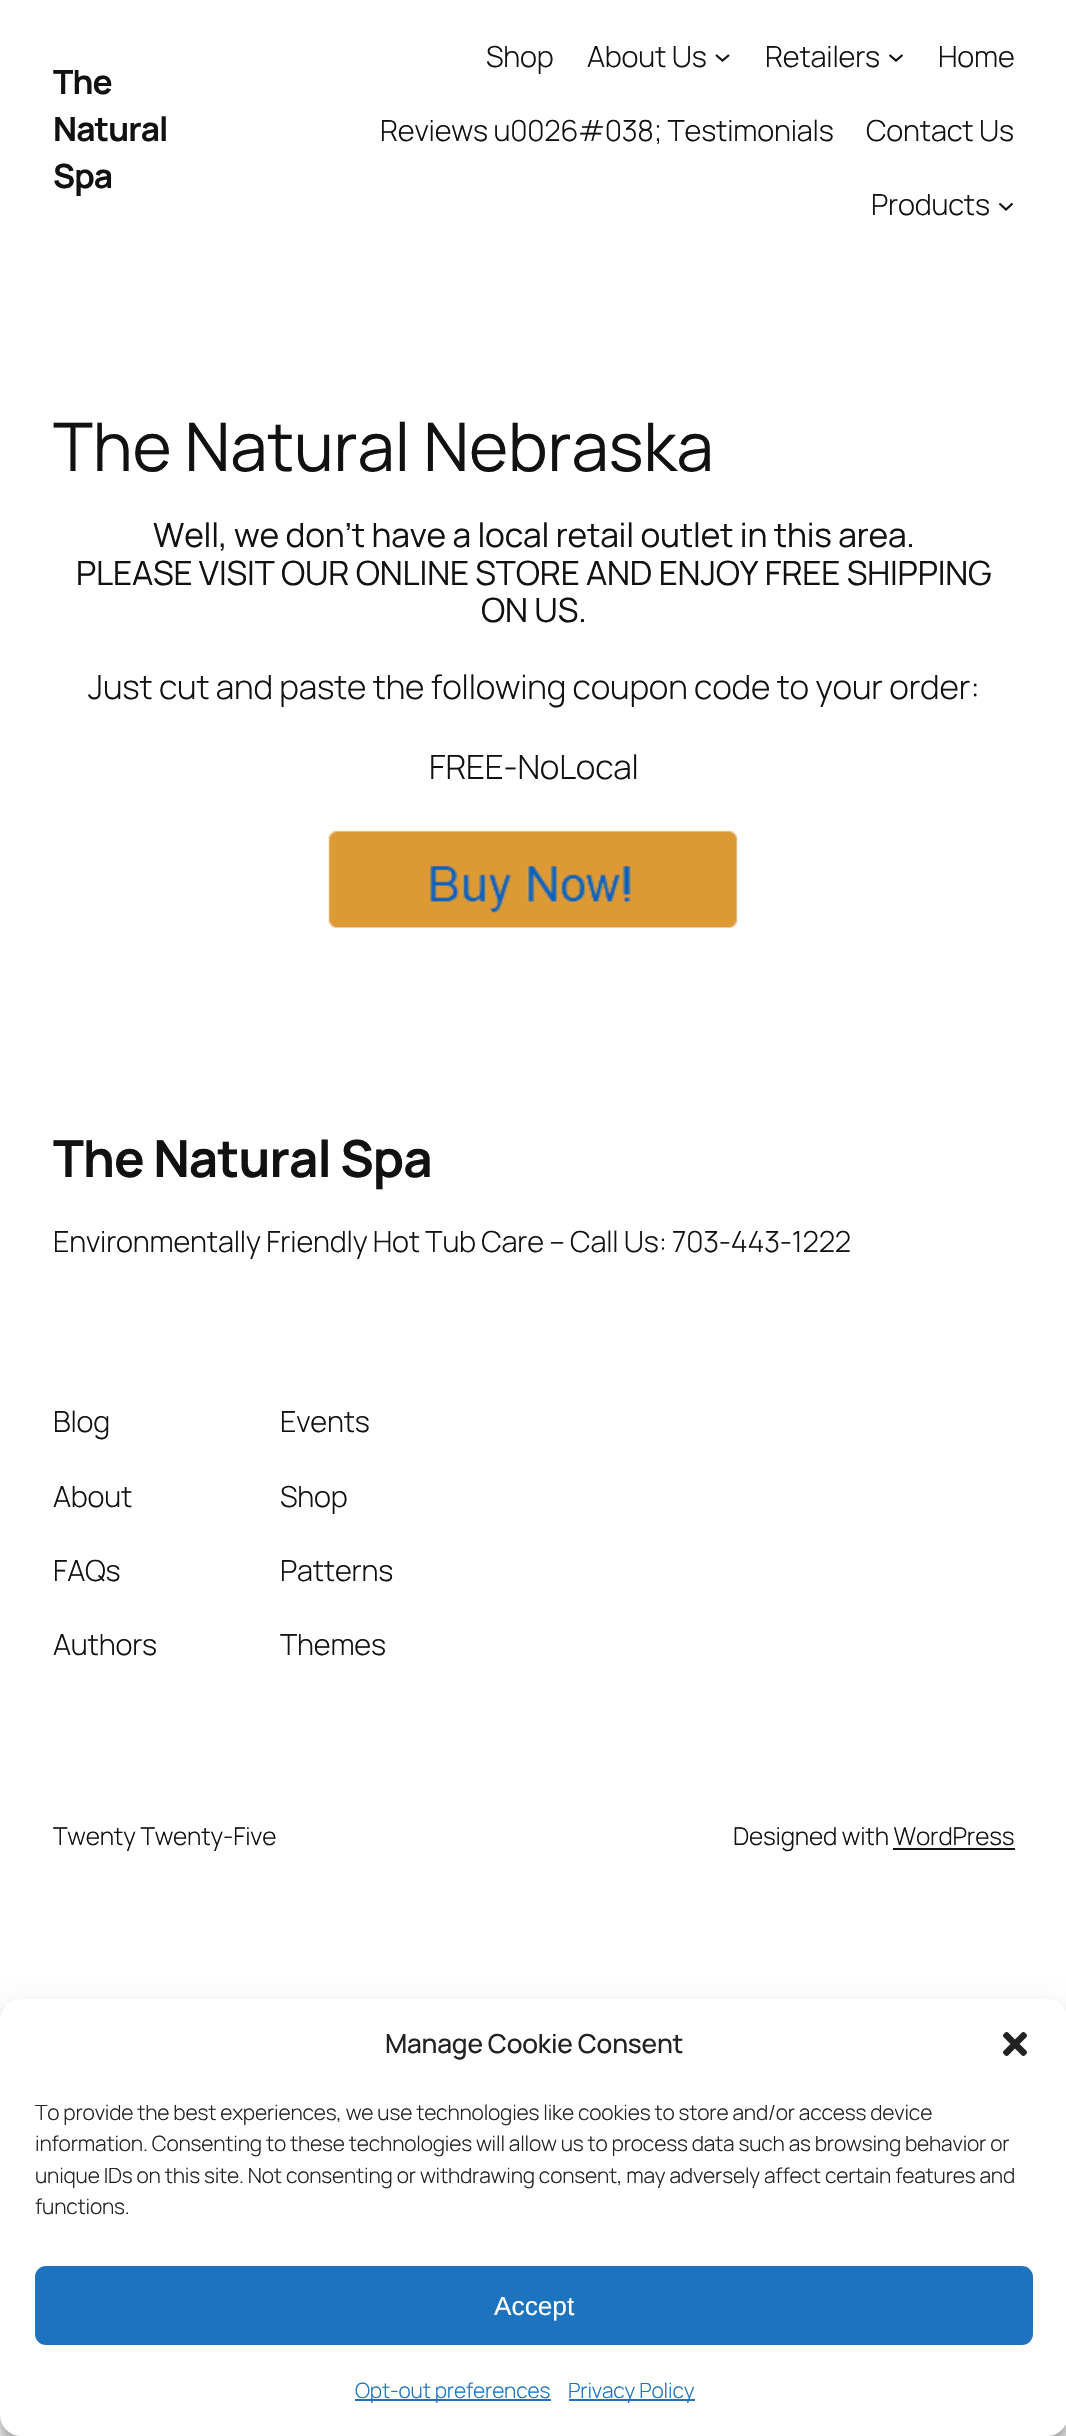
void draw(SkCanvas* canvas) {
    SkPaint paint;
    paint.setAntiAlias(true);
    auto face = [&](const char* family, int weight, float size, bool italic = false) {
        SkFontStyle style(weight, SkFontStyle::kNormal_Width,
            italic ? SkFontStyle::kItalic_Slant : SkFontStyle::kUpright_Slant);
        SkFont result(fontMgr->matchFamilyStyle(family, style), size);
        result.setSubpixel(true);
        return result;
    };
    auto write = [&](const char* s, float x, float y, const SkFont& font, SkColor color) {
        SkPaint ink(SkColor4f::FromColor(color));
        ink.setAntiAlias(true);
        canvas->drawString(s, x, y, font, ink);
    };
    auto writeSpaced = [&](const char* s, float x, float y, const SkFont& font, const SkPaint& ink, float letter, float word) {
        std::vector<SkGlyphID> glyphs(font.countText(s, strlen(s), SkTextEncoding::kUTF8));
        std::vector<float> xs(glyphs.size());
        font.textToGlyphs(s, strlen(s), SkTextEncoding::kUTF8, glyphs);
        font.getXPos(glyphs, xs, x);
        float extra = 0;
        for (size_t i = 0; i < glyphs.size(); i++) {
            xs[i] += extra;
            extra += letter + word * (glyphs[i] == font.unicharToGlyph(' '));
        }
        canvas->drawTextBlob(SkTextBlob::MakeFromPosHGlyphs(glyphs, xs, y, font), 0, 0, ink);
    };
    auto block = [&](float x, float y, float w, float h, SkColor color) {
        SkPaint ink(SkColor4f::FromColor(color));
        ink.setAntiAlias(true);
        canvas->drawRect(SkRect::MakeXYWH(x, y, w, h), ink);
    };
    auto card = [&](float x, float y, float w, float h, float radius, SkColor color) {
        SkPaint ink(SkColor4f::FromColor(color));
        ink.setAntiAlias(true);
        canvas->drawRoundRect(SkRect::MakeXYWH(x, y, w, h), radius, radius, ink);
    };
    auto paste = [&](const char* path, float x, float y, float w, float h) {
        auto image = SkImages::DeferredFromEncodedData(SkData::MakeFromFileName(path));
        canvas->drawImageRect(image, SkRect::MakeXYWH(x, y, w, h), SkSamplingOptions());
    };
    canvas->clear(SK_ColorWHITE);
    auto kFont1 = face("Manrope", 700, 33.5f);
    paint.setColor(SkColorSetRGB(17, 17, 17));
    writeSpaced("The", 53, 94, kFont1, paint, -0.9f, 0);
    writeSpaced("Natural", 53, 141, kFont1, paint, -0.9f, 0);
    writeSpaced("Spa", 53, 188, kFont1, paint, -0.9f, 0);
    auto kFont2 = face("Manrope", 300, 29);
    writeSpaced("Shop", 486, 67, kFont2, paint, -0.18f, 0);
    writeSpaced("About Us", 587, 67, kFont2, paint, -0.18f, 0);
    paint.setStyle(SkPaint::kStroke_Style);
    paint.setStrokeWidth(2.2f);
    canvas->drawPath(SkPathBuilder().moveTo(716, 55).lineTo(722.5f, 60.5f).lineTo(729, 55).detach(), paint);
    paint.setStyle(SkPaint::kFill_Style);
    writeSpaced("Retailers", 765, 67, kFont2, paint, -0.18f, 0);
    paint.setStyle(SkPaint::kStroke_Style);
    canvas->drawPath(SkPathBuilder().moveTo(889.5f, 55).lineTo(896, 60.5f).lineTo(902.5f, 55).detach(), paint);
    paint.setStyle(SkPaint::kFill_Style);
    writeSpaced("Home", 938, 67, kFont2, paint, -0.18f, 0);
    writeSpaced("Reviews u0026#038; Testimonials", 380, 141, kFont2, paint, -0.18f, 0);
    writeSpaced("Contact Us", 866, 141, kFont2, paint, -0.18f, 0);
    writeSpaced("Products", 871, 215, kFont2, paint, -0.18f, 0);
    paint.setStyle(SkPaint::kStroke_Style);
    canvas->drawPath(SkPathBuilder().moveTo(999.5f, 203.5f).lineTo(1006, 209.5f).lineTo(1012.5f, 203.5f).detach(), paint);
    auto kFont3 = face("Manrope", 400, 67);
    paint.setStyle(SkPaint::kFill_Style);
    writeSpaced("The Natural Nebraska", 53, 471, kFont3, paint, -0.18f, 0);
    auto kFont4 = face("Manrope", 400, 33.5f);
    writeSpaced("Well, we don’t have a local retail outlet in this area.", 153, 547, kFont4, paint, -0.18f, 0);
    writeSpaced("PLEASE VISIT OUR ONLINE STORE AND ENJOY FREE SHIPPING", 76, 585, kFont4, paint, -0.18f, 0);
    writeSpaced("ON US.", 481, 622, kFont4, paint, -0.18f, 0);
    auto kFont5 = face("Manrope", 300, 33.5f);
    writeSpaced("Just cut and paste the following coupon code to your order:", 88, 699, kFont5, paint, -0.18f, 0);
    writeSpaced("FREE-NoLocal", 429, 779, kFont5, paint, -0.18f, 0);
    paste("pic1.png", 328, 830, 410, 98);
    auto kFont6 = face("Manrope", 700, 51);
    writeSpaced("The Natural Spa", 53, 1177, kFont6, paint, -0.9f, 0);
    writeSpaced("Environmentally Friendly Hot Tub Care – Call Us: 703-443-1222", 53, 1252, kFont2, paint, -0.18f, -0.25f);
    writeSpaced("Blog", 53, 1432, kFont2, paint, -0.18f, 0);
    writeSpaced("About", 53, 1507, kFont2, paint, -0.18f, 0);
    writeSpaced("FAQs", 53, 1581, kFont2, paint, -0.18f, 0);
    writeSpaced("Authors", 53, 1655, kFont2, paint, -0.18f, 0);
    writeSpaced("Events", 280, 1432, kFont2, paint, -0.18f, 0);
    writeSpaced("Shop", 280, 1507, kFont2, paint, -0.18f, 0);
    writeSpaced("Patterns", 280, 1581, kFont2, paint, -0.18f, 0);
    writeSpaced("Themes", 280, 1655, kFont2, paint, -0.18f, 0);
    auto kFont7 = face("Manrope", 300, 24.5f);
    writeSpaced("Twenty Twenty-Five", 53, 1845, kFont7, paint, -0.18f, 0);
    writeSpaced("Designed with WordPress", 733, 1845, kFont7, paint, -0.18f, 0);
    block(893, 1848, 122, 2, SkColorSetRGB(17, 17, 17));
    paint.setColor(SkColorSetARGB(59, 0, 0, 0));
    paint.setMaskFilter(SkMaskFilter::MakeBlur(kNormal_SkBlurStyle, 5));
    canvas->drawRoundRect(SkRect::MakeXYWH(0, 2009, 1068, 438), 21, 21, paint);
    paint.setMaskFilter(nullptr);
    paint.setColor(SkColorSetARGB(48, 0, 0, 0));
    paint.setMaskFilter(SkMaskFilter::MakeBlur(kNormal_SkBlurStyle, 17.5f));
    canvas->drawRoundRect(SkRect::MakeXYWH(0, 2016, 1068, 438), 21, 21, paint);
    paint.setMaskFilter(nullptr);
    card(0, 1999, 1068, 437, 21, SK_ColorWHITE);
    auto kFont8 = face("Manrope", 500, 26.25f);
    paint.setColor(SkColorSetRGB(34, 34, 34));
    writeSpaced("Manage Cookie Consent", 385, 2053, kFont8, paint, -0.18f, 0);
    paste("pic2.png", 1003, 2032, 24, 24);
    auto kFont9 = face("Manrope", 300, 21);
    writeSpaced("To provide the best experiences, we use technologies like cookies to store and/or access device", 35, 2120, kFont9, paint, -0.18f, 0);
    writeSpaced("information. Consenting to these technologies will allow us to process data such as browsing behavior or", 35, 2151, kFont9, paint, -0.18f, 0);
    writeSpaced("unique IDs on this site. Not consenting or withdrawing consent, may adversely affect certain features and", 35, 2183, kFont9, paint, -0.18f, 0);
    writeSpaced("functions.", 35, 2214, kFont9, paint, -0.18f, 0);
    paint.setColor(SkColorSetRGB(30, 115, 190));
    canvas->drawRoundRect(SkRect::MakeXYWH(36, 2267, 996, 77), 10, 10, paint);
    paint.setStyle(SkPaint::kStroke_Style);
    paint.setStrokeWidth(2);
    canvas->drawRoundRect(SkRect::MakeXYWH(36, 2267, 996, 77), 10, 10, paint);
    auto kFont10 = face("Liberation Sans", 400, 26.25f);
    write("Accept", 494, 2315, kFont10, SK_ColorWHITE);
    block(355, 2399, 196, 2, SkColorSetRGB(30, 115, 190));
    paint.setStyle(SkPaint::kFill_Style);
    writeSpaced("Opt-out preferences", 355, 2398, kFont9, paint, -0.18f, 0);
    block(569, 2399, 126, 2, SkColorSetRGB(30, 115, 190));
    writeSpaced("Privacy Policy", 568, 2398, kFont9, paint, -0.18f, 0);
}
